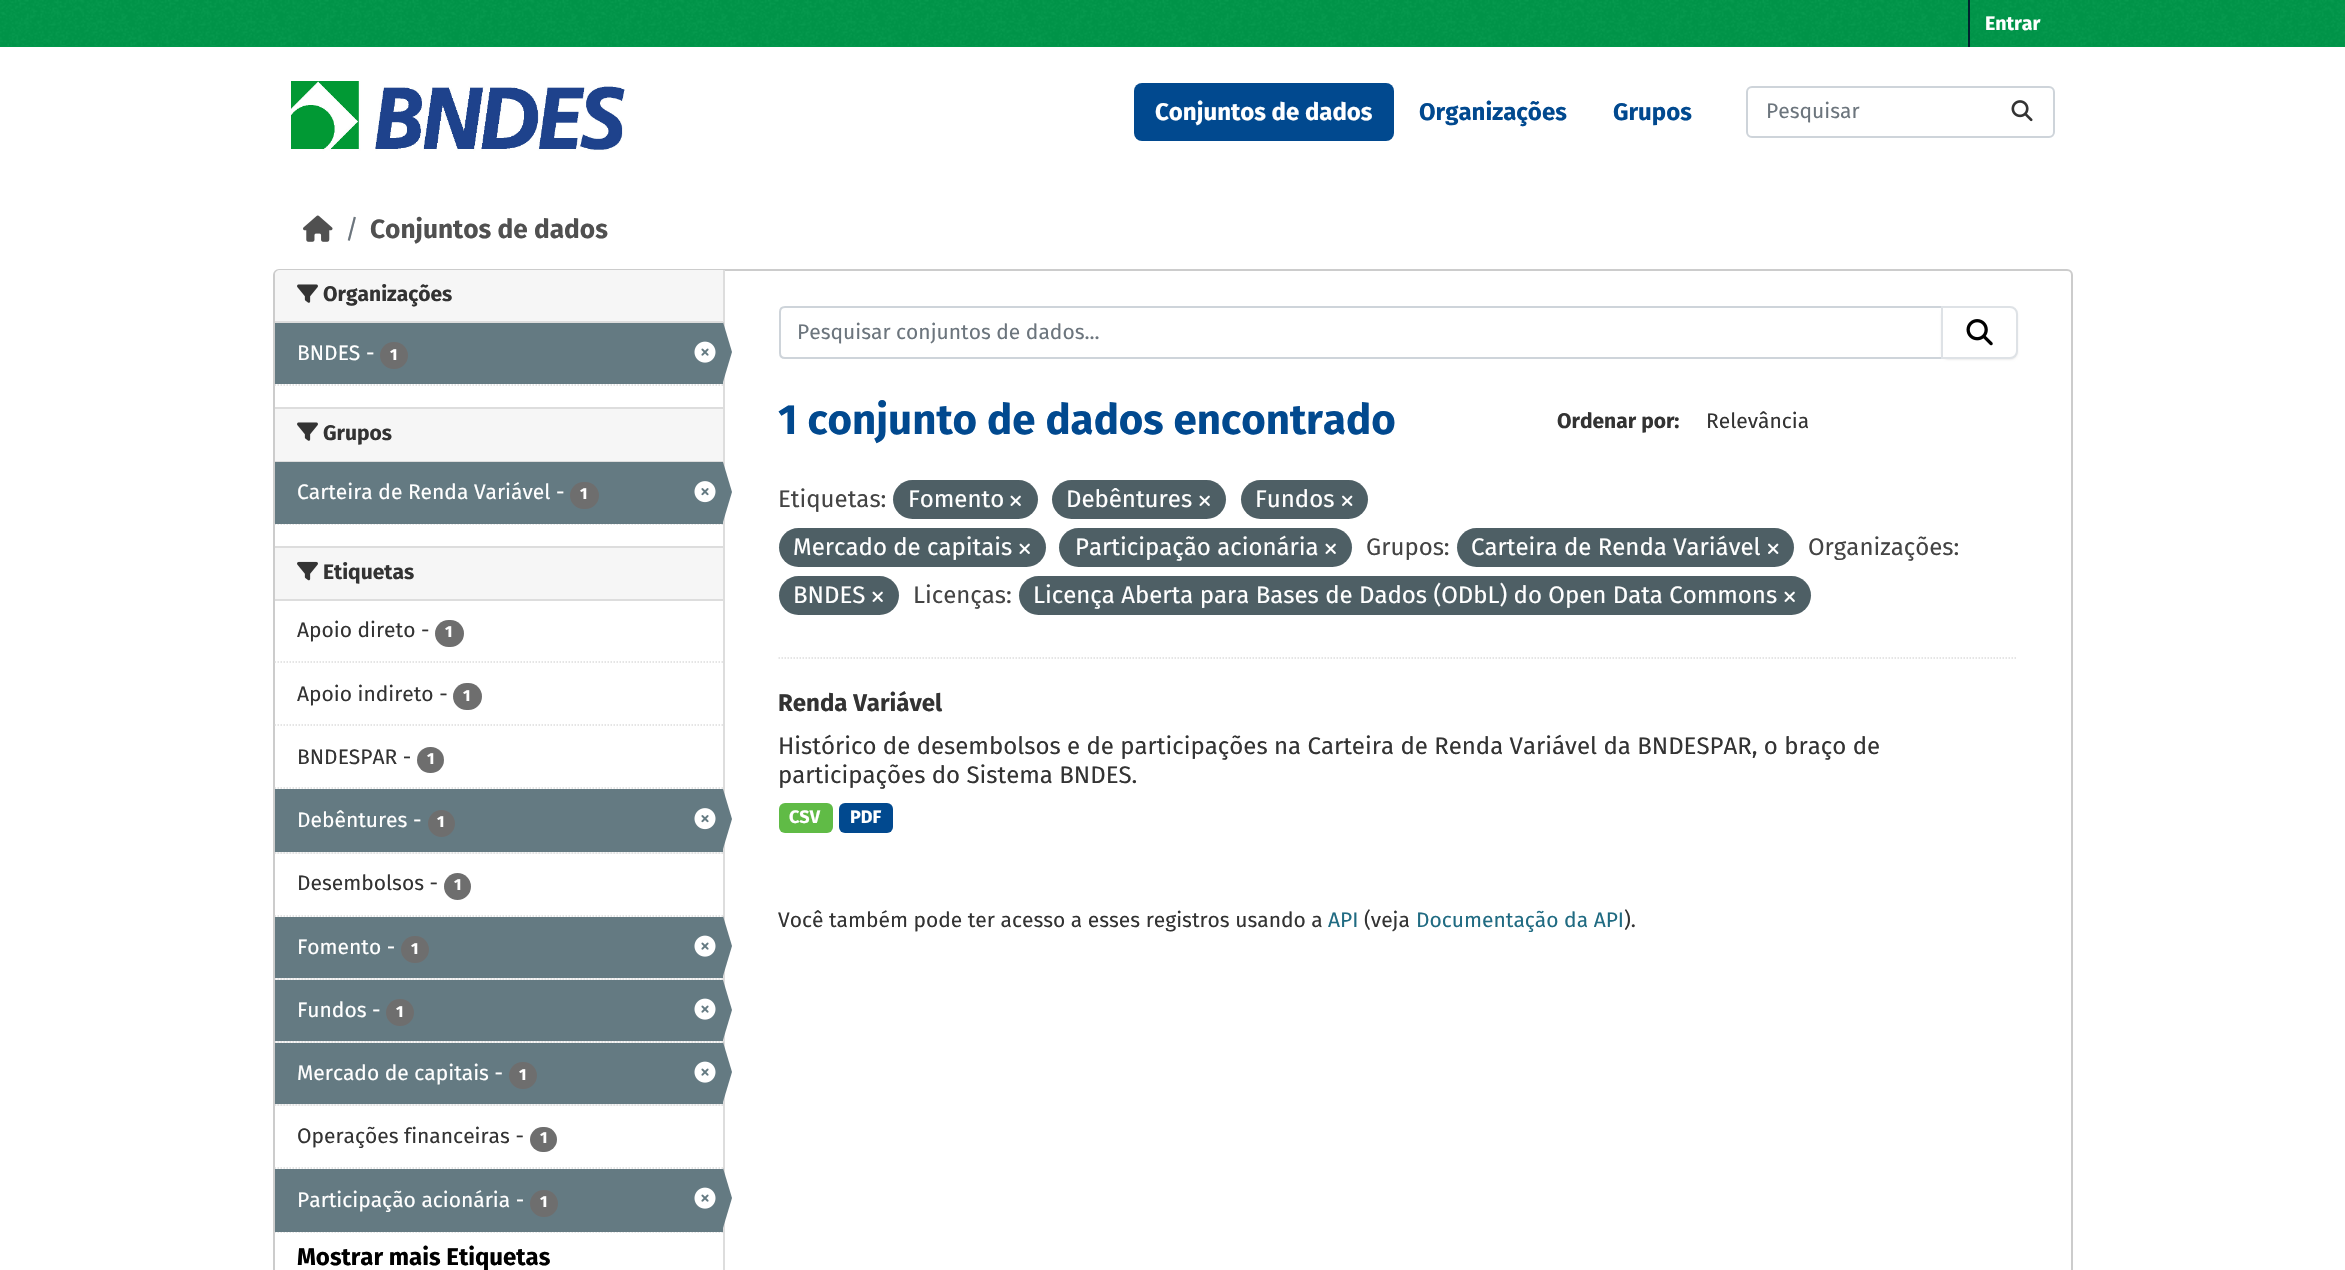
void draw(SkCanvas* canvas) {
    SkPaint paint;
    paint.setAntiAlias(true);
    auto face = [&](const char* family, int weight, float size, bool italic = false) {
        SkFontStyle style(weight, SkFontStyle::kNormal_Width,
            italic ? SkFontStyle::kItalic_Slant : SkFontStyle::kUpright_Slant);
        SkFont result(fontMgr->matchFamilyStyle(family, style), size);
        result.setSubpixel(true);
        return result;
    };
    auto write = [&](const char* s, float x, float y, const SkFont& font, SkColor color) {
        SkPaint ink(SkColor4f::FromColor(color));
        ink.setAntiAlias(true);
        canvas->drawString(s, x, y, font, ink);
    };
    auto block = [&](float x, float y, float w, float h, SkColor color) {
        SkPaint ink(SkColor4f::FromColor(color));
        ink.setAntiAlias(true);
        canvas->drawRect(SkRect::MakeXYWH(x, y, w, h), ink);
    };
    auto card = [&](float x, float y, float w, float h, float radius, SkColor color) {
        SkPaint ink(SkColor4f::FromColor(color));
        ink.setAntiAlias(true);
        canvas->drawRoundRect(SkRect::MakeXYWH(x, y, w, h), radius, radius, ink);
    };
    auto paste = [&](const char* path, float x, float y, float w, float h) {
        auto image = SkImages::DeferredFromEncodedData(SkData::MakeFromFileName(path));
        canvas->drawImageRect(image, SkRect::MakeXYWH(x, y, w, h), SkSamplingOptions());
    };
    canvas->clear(SK_ColorWHITE);
    block(0, 0, 2345, 47, SkColorSetRGB(0, 152, 74));
    paste("pic1.png", 0, 0, 2345, 46);
    block(1968, 0, 2, 47, SkColorSetRGB(0, 35, 46));
    auto kFont1 = face("Fira Sans", 700, 19.5f);
    write("Entrar", 1985, 30, kFont1, SK_ColorWHITE);
    paste("pic2.png", 291, 81, 334, 70);
    card(1134, 83, 260, 58, 8, SkColorSetRGB(1, 73, 143));
    auto kFont2 = face("Fira Sans", 700, 24);
    write("Conjuntos de dados", 1155, 120, kFont2, SK_ColorWHITE);
    write("Organizações", 1419, 120, kFont2, SkColorSetRGB(1, 73, 143));
    write("Grupos", 1613, 120, kFont2, SkColorSetRGB(1, 73, 143));
    paint.setStyle(SkPaint::kStroke_Style);
    paint.setStrokeWidth(2);
    paint.setColor(SkColorSetRGB(206, 212, 218));
    canvas->drawRoundRect(SkRect::MakeXYWH(1747, 87, 307, 50), 5, 5, paint);
    auto kFont3 = face("Fira Sans", 400, 21);
    write("Pesquisar", 1766, 118, kFont3, SkColorSetRGB(108, 117, 125));
    paste("pic3.png", 2011, 100, 22, 22);
    paste("pic4.png", 303, 215, 30, 27);
    auto kFont4 = face("Fira Sans", 400, 26.25f);
    write("/", 345, 238, kFont4, SkColorSetRGB(108, 117, 125));
    auto kFont5 = face("Fira Sans", 700, 26.25f);
    write("Conjuntos de dados", 370, 238, kFont5, SkColorSetRGB(80, 80, 80));
    paint.setColor(SkColorSetRGB(204, 204, 204));
    canvas->drawRoundRect(SkRect::MakeXYWH(274, 270, 1798, 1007), 5, 5, paint);
    paint.setStyle(SkPaint::kFill_Style);
    paint.setColor(SkColorSetRGB(246, 246, 246));
    canvas->drawPath(SkPathBuilder().moveTo(280, 270).lineTo(723, 270).lineTo(723, 323).lineTo(275, 323).lineTo(275, 275).cubicTo(275, 272, 277, 270, 280, 270).close().detach(), paint);
    block(275, 321, 448, 2, SkColorSetRGB(221, 221, 221));
    paste("pic5.png", 297, 284, 21, 19);
    auto kFont6 = face("Fira Sans", 700, 21);
    write("Organizações", 323, 301, kFont6, SkColorSetRGB(51, 51, 51));
    block(275, 323, 448, 61, SkColorSetRGB(100, 122, 130));
    write("BNDES -", 297, 360, kFont3, SK_ColorWHITE);
    card(380, 342, 28, 27, 13.5f, SkColorSetRGB(110, 110, 110));
    auto kFont7 = face("Fira Sans", 700, 16);
    write("1", 390, 360, kFont7, SK_ColorWHITE);
    paste("pic6.png", 694, 341, 22, 22);
    block(723, 270, 2, 1000, SkColorSetRGB(221, 221, 221));
    paint.setColor(SkColorSetRGB(100, 122, 130));
    canvas->drawPath(SkPathBuilder().moveTo(723, 382).lineTo(723, 322).lineTo(732, 352).close().detach(), paint);
    paint.setStyle(SkPaint::kStroke_Style);
    paint.setStrokeWidth(1.5f);
    paint.setColor(SkColorSetRGB(221, 221, 221));
    paint.setPathEffect(SkDashPathEffect::Make({{1.5f, 1.5f}}, 0));
    canvas->drawPath(SkPathBuilder().moveTo(274.5f, 385).lineTo(723, 385).detach(), paint);
    paint.setPathEffect(nullptr);
    block(275, 409, 448, 52, SkColorSetRGB(246, 246, 246));
    block(275, 407, 448, 2, SkColorSetRGB(221, 221, 221));
    block(275, 461, 448, 1, SkColorSetRGB(221, 221, 221));
    paste("pic5.png", 297, 422, 21, 19);
    write("Grupos", 323, 440, kFont6, SkColorSetRGB(51, 51, 51));
    paint.setPathEffect(SkDashPathEffect::Make({{1.5f, 1.5f}}, 0));
    canvas->drawPath(SkPathBuilder().moveTo(274.5f, 524).lineTo(723, 524).detach(), paint);
    paint.setPathEffect(nullptr);
    block(275, 462, 448, 62, SkColorSetRGB(100, 122, 130));
    write("Carteira de Renda Variável -", 297, 499, kFont3, SK_ColorWHITE);
    card(570, 482, 29, 27, 13.5f, SkColorSetRGB(110, 110, 110));
    write("1", 580, 499, kFont7, SK_ColorWHITE);
    paste("pic7.png", 694, 481, 22, 22);
    paint.setStyle(SkPaint::kFill_Style);
    paint.setColor(SkColorSetRGB(100, 122, 130));
    canvas->drawPath(SkPathBuilder().moveTo(723, 522).lineTo(723, 462).lineTo(732, 492).close().detach(), paint);
    block(275, 548, 448, 51, SkColorSetRGB(246, 246, 246));
    block(275, 546, 448, 2, SkColorSetRGB(221, 221, 221));
    block(275, 599, 448, 2, SkColorSetRGB(221, 221, 221));
    paste("pic8.png", 297, 561, 21, 20);
    write("Etiquetas", 323, 579, kFont6, SkColorSetRGB(51, 51, 51));
    paint.setStyle(SkPaint::kStroke_Style);
    paint.setColor(SkColorSetRGB(221, 221, 221));
    paint.setPathEffect(SkDashPathEffect::Make({{1.5f, 1.5f}}, 0));
    canvas->drawPath(SkPathBuilder().moveTo(274.5f, 662).lineTo(723, 662).detach(), paint);
    paint.setPathEffect(nullptr);
    write("Apoio direto -", 297, 637, kFont3, SkColorSetRGB(51, 51, 51));
    card(435, 620, 29, 27, 13.5f, SkColorSetRGB(110, 110, 110));
    write("1", 445, 637, kFont7, SK_ColorWHITE);
    paint.setPathEffect(SkDashPathEffect::Make({{1.5f, 1.5f}}, 0));
    canvas->drawPath(SkPathBuilder().moveTo(274.5f, 725).lineTo(723, 725).detach(), paint);
    paint.setPathEffect(nullptr);
    write("Apoio indireto -", 297, 701, kFont3, SkColorSetRGB(51, 51, 51));
    card(453, 683, 29, 27, 13.5f, SkColorSetRGB(110, 110, 110));
    write("1", 463, 701, kFont7, SK_ColorWHITE);
    paint.setPathEffect(SkDashPathEffect::Make({{1.5f, 1.5f}}, 0));
    canvas->drawPath(SkPathBuilder().moveTo(274.5f, 788).lineTo(723, 788).detach(), paint);
    paint.setPathEffect(nullptr);
    write("BNDESPAR -", 297, 764, kFont3, SkColorSetRGB(51, 51, 51));
    card(417, 747, 27, 26, 13, SkColorSetRGB(110, 110, 110));
    write("1", 427, 764, kFont7, SK_ColorWHITE);
    block(275, 852, 448, 2, SkColorSetRGB(246, 246, 246));
    paint.setPathEffect(SkDashPathEffect::Make({{1.5f, 1.5f}}, 0));
    canvas->drawPath(SkPathBuilder().moveTo(274.5f, 853).lineTo(723, 853).detach(), paint);
    paint.setPathEffect(nullptr);
    block(275, 789, 448, 63, SkColorSetRGB(100, 122, 130));
    write("Debêntures -", 297, 827, kFont3, SK_ColorWHITE);
    paint.setStyle(SkPaint::kFill_Style);
    paint.setColor(SkColorSetRGB(110, 110, 110));
    canvas->drawCircle(441.5f, 823.5f, 13.5f, paint);
    write("1", 437, 827, kFont7, SK_ColorWHITE);
    paste("pic7.png", 694, 808, 22, 22);
    paint.setColor(SkColorSetRGB(100, 122, 130));
    canvas->drawPath(SkPathBuilder().moveTo(723, 849).lineTo(723, 789).lineTo(732, 819).close().detach(), paint);
    paint.setStyle(SkPaint::kStroke_Style);
    paint.setColor(SkColorSetRGB(221, 221, 221));
    paint.setPathEffect(SkDashPathEffect::Make({{1.5f, 1.5f}}, 0));
    canvas->drawPath(SkPathBuilder().moveTo(274.5f, 916).lineTo(723, 916).detach(), paint);
    paint.setPathEffect(nullptr);
    write("Desembolsos -", 297, 890, kFont3, SkColorSetRGB(51, 51, 51));
    paint.setStyle(SkPaint::kFill_Style);
    paint.setColor(SkColorSetRGB(110, 110, 110));
    canvas->drawCircle(457.5f, 886.5f, 13.5f, paint);
    write("1", 454, 890, kFont7, SK_ColorWHITE);
    block(275, 978, 448, 2, SkColorSetRGB(246, 246, 246));
    paint.setStyle(SkPaint::kStroke_Style);
    paint.setColor(SkColorSetRGB(221, 221, 221));
    paint.setPathEffect(SkDashPathEffect::Make({{1.5f, 1.5f}}, 0));
    canvas->drawPath(SkPathBuilder().moveTo(274.5f, 979).lineTo(723, 979).detach(), paint);
    paint.setPathEffect(nullptr);
    block(275, 917, 448, 61, SkColorSetRGB(100, 122, 130));
    write("Fomento -", 297, 954, kFont3, SK_ColorWHITE);
    card(401, 936, 28, 27, 13.5f, SkColorSetRGB(110, 110, 110));
    write("1", 411, 954, kFont7, SK_ColorWHITE);
    paste("pic6.png", 694, 935, 22, 22);
    paint.setStyle(SkPaint::kFill_Style);
    paint.setColor(SkColorSetRGB(100, 122, 130));
    canvas->drawPath(SkPathBuilder().moveTo(723, 976).lineTo(723, 916).lineTo(732, 946).close().detach(), paint);
    block(275, 1041, 448, 2, SkColorSetRGB(246, 246, 246));
    paint.setStyle(SkPaint::kStroke_Style);
    paint.setColor(SkColorSetRGB(221, 221, 221));
    paint.setPathEffect(SkDashPathEffect::Make({{1.5f, 1.5f}}, 0));
    canvas->drawPath(SkPathBuilder().moveTo(274.5f, 1042).lineTo(723, 1042).detach(), paint);
    paint.setPathEffect(nullptr);
    block(275, 980, 448, 61, SkColorSetRGB(100, 122, 130));
    write("Fundos -", 297, 1017, kFont3, SK_ColorWHITE);
    card(386, 999, 28, 27, 13.5f, SkColorSetRGB(110, 110, 110));
    write("1", 396, 1017, kFont7, SK_ColorWHITE);
    paste("pic6.png", 694, 998, 22, 22);
    paint.setStyle(SkPaint::kFill_Style);
    paint.setColor(SkColorSetRGB(100, 122, 130));
    canvas->drawPath(SkPathBuilder().moveTo(723, 1040).lineTo(723, 980).lineTo(732, 1010).close().detach(), paint);
    block(275, 1104, 448, 2, SkColorSetRGB(246, 246, 246));
    paint.setStyle(SkPaint::kStroke_Style);
    paint.setColor(SkColorSetRGB(221, 221, 221));
    paint.setPathEffect(SkDashPathEffect::Make({{1.5f, 1.5f}}, 0));
    canvas->drawPath(SkPathBuilder().moveTo(274.5f, 1105).lineTo(723, 1105).detach(), paint);
    paint.setPathEffect(nullptr);
    block(275, 1043, 448, 61, SkColorSetRGB(100, 122, 130));
    write("Mercado de capitais -", 297, 1080, kFont3, SK_ColorWHITE);
    card(509, 1062, 28, 27, 13.5f, SkColorSetRGB(110, 110, 110));
    write("1", 519, 1080, kFont7, SK_ColorWHITE);
    paste("pic6.png", 694, 1061, 22, 22);
    paint.setStyle(SkPaint::kFill_Style);
    paint.setColor(SkColorSetRGB(100, 122, 130));
    canvas->drawPath(SkPathBuilder().moveTo(723, 1102).lineTo(723, 1042).lineTo(732, 1072).close().detach(), paint);
    paint.setStyle(SkPaint::kStroke_Style);
    paint.setColor(SkColorSetRGB(221, 221, 221));
    paint.setPathEffect(SkDashPathEffect::Make({{1.5f, 1.5f}}, 0));
    canvas->drawPath(SkPathBuilder().moveTo(274.5f, 1168).lineTo(723, 1168).detach(), paint);
    paint.setPathEffect(nullptr);
    write("Operações financeiras -", 297, 1143, kFont3, SkColorSetRGB(51, 51, 51));
    card(530, 1127, 27, 25, 12.5f, SkColorSetRGB(110, 110, 110));
    write("1", 540, 1143, kFont7, SK_ColorWHITE);
    paint.setPathEffect(SkDashPathEffect::Make({{1.5f, 1.5f}}, 0));
    canvas->drawPath(SkPathBuilder().moveTo(274.5f, 1232).lineTo(723, 1232).detach(), paint);
    paint.setPathEffect(nullptr);
    block(275, 1169, 448, 63, SkColorSetRGB(100, 122, 130));
    write("Participação acionária -", 297, 1207, kFont3, SK_ColorWHITE);
    card(530, 1190, 28, 27, 13.5f, SkColorSetRGB(110, 110, 110));
    write("1", 540, 1207, kFont7, SK_ColorWHITE);
    paste("pic6.png", 694, 1187, 22, 22);
    paint.setStyle(SkPaint::kFill_Style);
    paint.setColor(SkColorSetRGB(100, 122, 130));
    canvas->drawPath(SkPathBuilder().moveTo(723, 1228).lineTo(723, 1168).lineTo(732, 1198).close().detach(), paint);
    write("Mostrar mais Etiquetas", 297, 1265, kFont2, SK_ColorBLACK);
    paint.setStyle(SkPaint::kStroke_Style);
    paint.setColor(SkColorSetRGB(221, 221, 221));
    paint.setPathEffect(SkDashPathEffect::Make({{1.5f, 1.5f}}, 0));
    canvas->drawPath(SkPathBuilder().moveTo(778.5f, 658).lineTo(2017.5f, 658).detach(), paint);
    paint.setPathEffect(nullptr);
    paint.setStrokeWidth(2);
    paint.setColor(SkColorSetRGB(206, 212, 218));
    canvas->drawPath(SkPathBuilder().moveTo(785, 307).lineTo(1942, 307).lineTo(1942, 358).lineTo(785, 358).cubicTo(782, 358, 780, 356, 780, 353).lineTo(780, 312).cubicTo(780, 309, 782, 307, 785, 307).close().detach(), paint);
    write("Pesquisar conjuntos de dados...", 797, 339, kFont3, SkColorSetRGB(108, 117, 125));
    paint.setStyle(SkPaint::kFill_Style);
    paint.setColor(SkColorSetARGB(18, 0, 0, 0));
    paint.setMaskFilter(SkMaskFilter::MakeBlur(kNormal_SkBlurStyle, 1));
    canvas->drawRoundRect(SkRect::MakeXYWH(1941, 308, 77, 52), 8, 8, paint);
    paint.setMaskFilter(nullptr);
    paint.setColor(SK_ColorWHITE);
    canvas->drawPath(SkPathBuilder().moveTo(1942, 307).lineTo(2010, 307).cubicTo(2014, 307, 2017, 310, 2017, 314).lineTo(2017, 351).cubicTo(2017, 355, 2014, 358, 2010, 358).lineTo(1942, 358).close().detach(), paint);
    paint.setStyle(SkPaint::kStroke_Style);
    paint.setColor(SkColorSetRGB(222, 226, 230));
    canvas->drawPath(SkPathBuilder().moveTo(1942, 307).lineTo(2010, 307).cubicTo(2014, 307, 2017, 310, 2017, 314).lineTo(2017, 351).cubicTo(2017, 355, 2014, 358, 2010, 358).lineTo(1942, 358).close().detach(), paint);
    paste("pic9.png", 1966, 319, 27, 27);
    auto kFont8 = face("Fira Sans", 700, 42);
    write("1 conjunto de dados encontrado", 778, 434, kFont8, SkColorSetRGB(1, 73, 143));
    write("Ordenar por:", 1557, 428, kFont6, SkColorSetRGB(51, 51, 51));
    write("Relevância", 1706, 428, kFont3, SkColorSetRGB(51, 51, 51));
    auto kFont9 = face("Fira Sans", 400, 24);
    write("Etiquetas:", 778, 507, kFont9, SkColorSetRGB(68, 68, 68));
    card(893, 480, 145, 39, 19.5f, SkColorSetRGB(78, 95, 101));
    write("Fomento", 908, 507, kFont9, SK_ColorWHITE);
    paste("pic10.png", 1010, 495, 11, 11);
    card(1052, 480, 174, 39, 19.5f, SkColorSetRGB(78, 95, 101));
    write("Debêntures", 1066, 507, kFont9, SK_ColorWHITE);
    paste("pic10.png", 1199, 495, 11, 11);
    card(1241, 480, 127, 39, 19.5f, SkColorSetRGB(78, 95, 101));
    write("Fundos", 1255, 507, kFont9, SK_ColorWHITE);
    paste("pic11.png", 1342, 495, 11, 11);
    card(779, 528, 267, 39, 19.5f, SkColorSetRGB(78, 95, 101));
    write("Mercado de capitais", 793, 555, kFont9, SK_ColorWHITE);
    paste("pic10.png", 1019, 543, 11, 11);
    card(1059, 528, 293, 39, 19.5f, SkColorSetRGB(78, 95, 101));
    write("Participação acionária", 1075, 555, kFont9, SK_ColorWHITE);
    paste("pic10.png", 1325, 543, 11, 11);
    write("Grupos:", 1366, 555, kFont9, SkColorSetRGB(68, 68, 68));
    card(1457, 528, 337, 39, 19.5f, SkColorSetRGB(78, 95, 101));
    write("Carteira de Renda Variável", 1471, 555, kFont9, SK_ColorWHITE);
    paste("pic11.png", 1768, 543, 11, 11);
    write("Organizações:", 1808, 555, kFont9, SkColorSetRGB(68, 68, 68));
    card(779, 576, 120, 39, 19.5f, SkColorSetRGB(78, 95, 101));
    write("BNDES", 793, 603, kFont9, SK_ColorWHITE);
    paste("pic10.png", 872, 591, 11, 11);
    write("Licenças:", 913, 603, kFont9, SkColorSetRGB(68, 68, 68));
    card(1019, 576, 792, 39, 19.5f, SkColorSetRGB(78, 95, 101));
    write("Licença Aberta para Bases de Dados (ODbL) do Open Data Commons", 1033, 603, kFont9, SK_ColorWHITE);
    paste("pic10.png", 1784, 591, 11, 11);
    write("Renda Variável", 778, 711, kFont2, SkColorSetRGB(51, 51, 51));
    write("Histórico de desembolsos e de participações na Carteira de Renda Variável da BNDESPAR, o braço de", 778, 754, kFont9, SkColorSetRGB(51, 51, 51));
    write("participações do Sistema BNDES.", 778, 783, kFont9, SkColorSetRGB(51, 51, 51));
    card(779, 803, 54, 30, 6, SkColorSetRGB(96, 187, 70));
    auto kFont10 = face("Fira Sans", 700, 18);
    write("CSV", 789, 823, kFont10, SK_ColorWHITE);
    card(839, 803, 54, 30, 6, SkColorSetRGB(1, 73, 143));
    write("PDF", 850, 823, kFont10, SK_ColorWHITE);
    write("Você também pode ter acesso a esses registros usando a", 778, 927, kFont3, SkColorSetRGB(51, 51, 51));
    write("API", 1328, 927, kFont3, SkColorSetRGB(32, 107, 130));
    write("(veja", 1364, 927, kFont3, SkColorSetRGB(51, 51, 51));
    write("Documentação da API", 1416, 927, kFont3, SkColorSetRGB(32, 107, 130));
    write(").", 1624, 927, kFont3, SkColorSetRGB(51, 51, 51));
}
